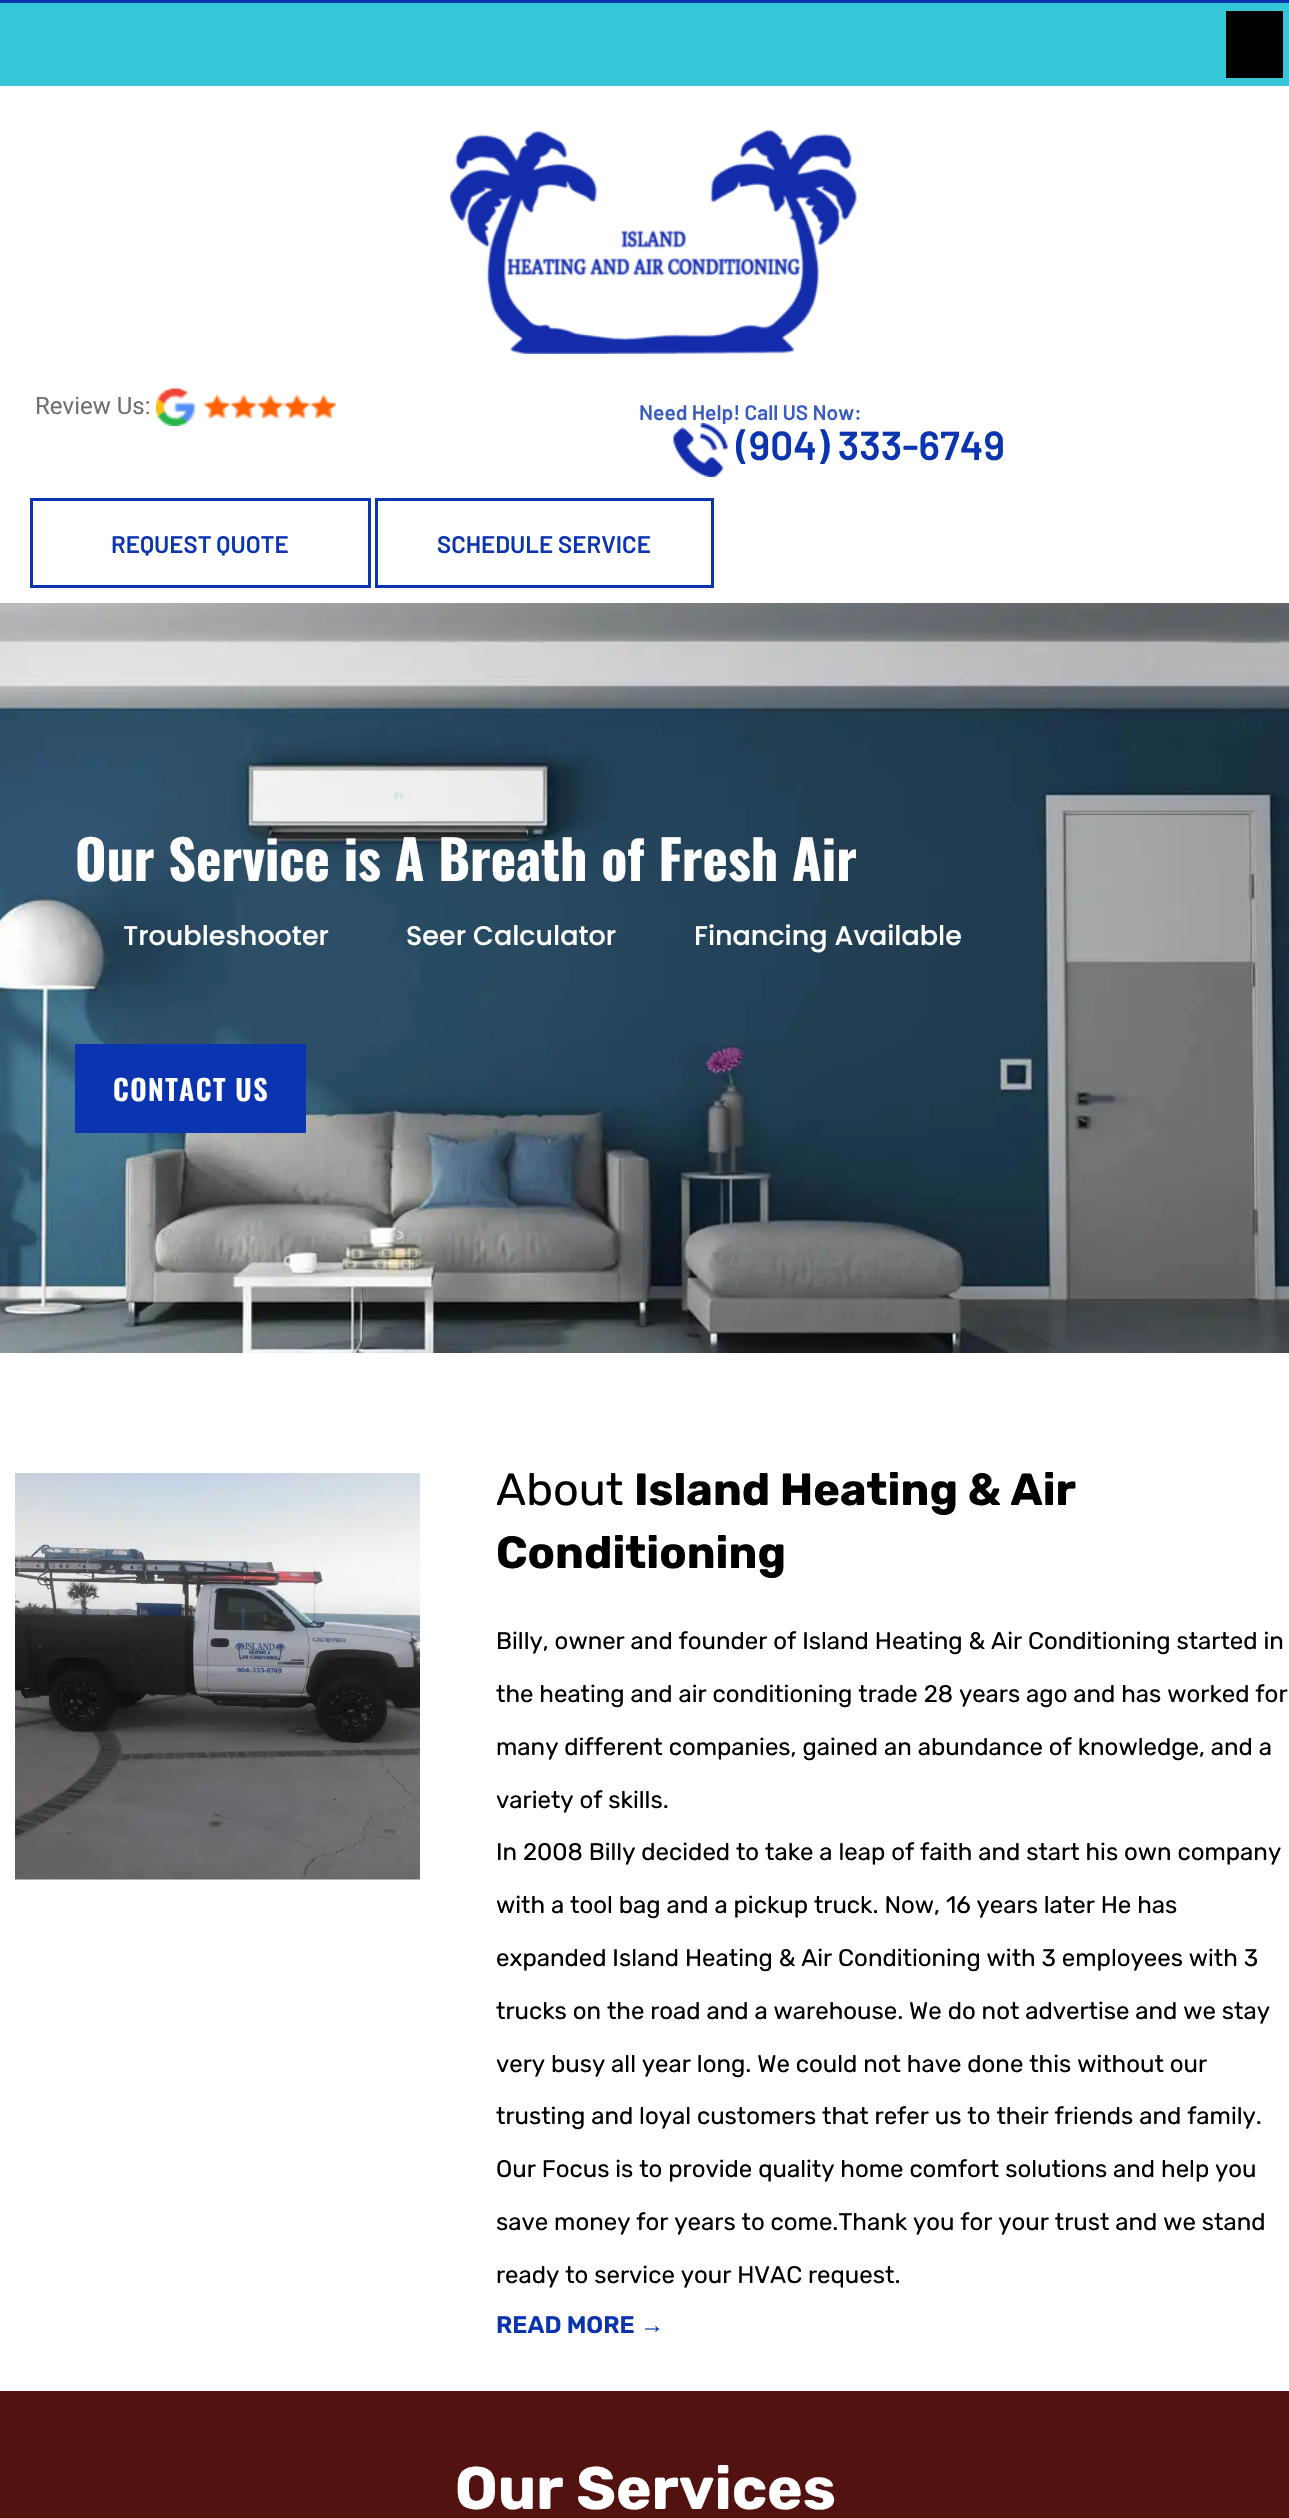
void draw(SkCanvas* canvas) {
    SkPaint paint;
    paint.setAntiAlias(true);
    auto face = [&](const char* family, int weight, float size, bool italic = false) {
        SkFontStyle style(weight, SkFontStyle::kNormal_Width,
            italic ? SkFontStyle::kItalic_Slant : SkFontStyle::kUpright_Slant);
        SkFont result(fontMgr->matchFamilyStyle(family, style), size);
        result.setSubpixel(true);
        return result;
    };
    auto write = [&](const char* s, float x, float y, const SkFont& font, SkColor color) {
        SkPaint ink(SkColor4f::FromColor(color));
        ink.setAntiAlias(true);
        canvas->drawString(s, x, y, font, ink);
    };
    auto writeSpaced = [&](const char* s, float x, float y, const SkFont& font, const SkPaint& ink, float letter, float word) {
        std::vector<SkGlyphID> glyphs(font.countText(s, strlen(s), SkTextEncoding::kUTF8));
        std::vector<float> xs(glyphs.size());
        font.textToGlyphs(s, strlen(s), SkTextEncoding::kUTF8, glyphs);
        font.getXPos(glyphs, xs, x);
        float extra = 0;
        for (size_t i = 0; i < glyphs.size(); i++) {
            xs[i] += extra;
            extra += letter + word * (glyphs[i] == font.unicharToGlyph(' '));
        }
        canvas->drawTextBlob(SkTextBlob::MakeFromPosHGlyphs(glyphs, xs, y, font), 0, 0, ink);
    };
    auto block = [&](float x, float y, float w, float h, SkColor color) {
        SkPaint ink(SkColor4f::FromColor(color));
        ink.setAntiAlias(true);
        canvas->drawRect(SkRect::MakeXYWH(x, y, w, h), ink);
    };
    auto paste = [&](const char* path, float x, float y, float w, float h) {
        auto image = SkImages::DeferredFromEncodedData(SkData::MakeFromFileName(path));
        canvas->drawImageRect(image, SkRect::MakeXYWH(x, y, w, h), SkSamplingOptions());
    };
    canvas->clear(SK_ColorWHITE);
    block(0, 3, 1289, 83, SkColorSetRGB(53, 199, 215));
    block(0, 0, 1289, 3, SkColorSetRGB(11, 52, 176));
    block(1226, 11, 57, 67, SK_ColorBLACK);
    paste("pic1.png", 450, 130, 407, 224);
    auto kFont1 = face("Roboto", 400, 24);
    write("Review Us:", 35, 414, kFont1, SkColorSetRGB(112, 112, 112));
    paste("pic2.png", 156, 388, 180, 38);
    auto kFont2 = face("Barlow", 600, 21);
    write("Need Help! Call US Now:", 639, 420, kFont2, SkColorSetRGB(57, 93, 192));
    paste("pic3.png", 673, 423, 55, 54);
    auto kFont3 = face("Barlow", 600, 40.5f);
    write("(904) 333-6749", 736, 460, kFont3, SkColorSetRGB(11, 52, 176));
    paint.setStyle(SkPaint::kStroke_Style);
    paint.setStrokeWidth(3);
    paint.setColor(SkColorSetRGB(11, 52, 176));
    canvas->drawRect(SkRect::MakeXYWH(31.5f, 499.5f, 338, 87), paint);
    auto kFont4 = face("Barlow", 600, 24);
    write("REQUEST QUOTE", 111, 553, kFont4, SkColorSetRGB(11, 52, 176));
    canvas->drawRect(SkRect::MakeXYWH(376.5f, 499.5f, 336, 87), paint);
    write("SCHEDULE SERVICE", 437, 553, kFont4, SkColorSetRGB(11, 52, 176));
    paste("pic4.png", 0, 603, 1289, 750);
    auto kFont5 = face("Oswald", 700, 54);
    write("Our Service is A Breath of Fresh Air", 75, 881, kFont5, SK_ColorWHITE);
    auto kFont6 = face("Poppins", 500, 27);
    write("Troubleshooter", 123, 945, kFont6, SK_ColorWHITE);
    write("Seer Calculator", 406, 945, kFont6, SK_ColorWHITE);
    write("Financing Available", 694, 945, kFont6, SK_ColorWHITE);
    block(75, 1044, 231, 89, SkColorSetRGB(11, 52, 176));
    auto kFont7 = face("Oswald", 600, 28.5f);
    paint.setStyle(SkPaint::kFill_Style);
    paint.setColor(SK_ColorWHITE);
    writeSpaced("CONTACT US", 113, 1101, kFont7, paint, 1.4f, 0);
    paste("pic5.png", 15, 1473, 405, 407);
    auto kFont8 = face("Rubik", 400, 45);
    write("About", 496, 1505, kFont8, SK_ColorBLACK);
    auto kFont9 = face("Rubik", 700, 45);
    write("Island Heating & Air", 634, 1505, kFont9, SK_ColorBLACK);
    write("Conditioning", 496, 1568, kFont9, SK_ColorBLACK);
    auto kFont10 = face("Rubik", 400, 24);
    write("Billy, owner and founder of Island Heating & Air Conditioning started in", 496, 1649, kFont10, SK_ColorBLACK);
    write("the heating and air conditioning trade 28 years ago and has worked for", 496, 1702, kFont10, SK_ColorBLACK);
    write("many different companies, gained an abundance of knowledge, and a", 496, 1755, kFont10, SK_ColorBLACK);
    write("variety of skills.", 496, 1808, kFont10, SK_ColorBLACK);
    write("In 2008 Billy decided to take a leap of faith and start his own company", 496, 1860, kFont10, SK_ColorBLACK);
    write("with a tool bag and a pickup truck. Now, 16 years later He has", 496, 1913, kFont10, SK_ColorBLACK);
    write("expanded Island Heating & Air Conditioning with 3 employees with 3", 496, 1966, kFont10, SK_ColorBLACK);
    write("trucks on the road and a warehouse. We do not advertise and we stay", 496, 2019, kFont10, SK_ColorBLACK);
    write("very busy all year long. We could not have done this without our", 496, 2072, kFont10, SK_ColorBLACK);
    write("trusting and loyal customers that refer us to their friends and family.", 496, 2124, kFont10, SK_ColorBLACK);
    write("Our Focus is to provide quality home comfort solutions and help you", 496, 2177, kFont10, SK_ColorBLACK);
    write("save money for years to come.Thank you for your trust and we stand", 496, 2230, kFont10, SK_ColorBLACK);
    write("ready to service your HVAC request.", 496, 2283, kFont10, SK_ColorBLACK);
    auto kFont11 = face("Rubik", 600, 24);
    write("READ MORE", 496, 2333, kFont11, SkColorSetRGB(11, 52, 176));
    auto kFont12 = face("Liberation Sans", 700, 24);
    write("→", 640, 2333, kFont12, SkColorSetRGB(11, 52, 176));
    block(0, 2391, 1289, 127, SkColorSetRGB(81, 18, 16));
    auto kFont13 = face("Rubik", 700, 60);
    write("Our Services", 455, 2509, kFont13, SK_ColorWHITE);
}
